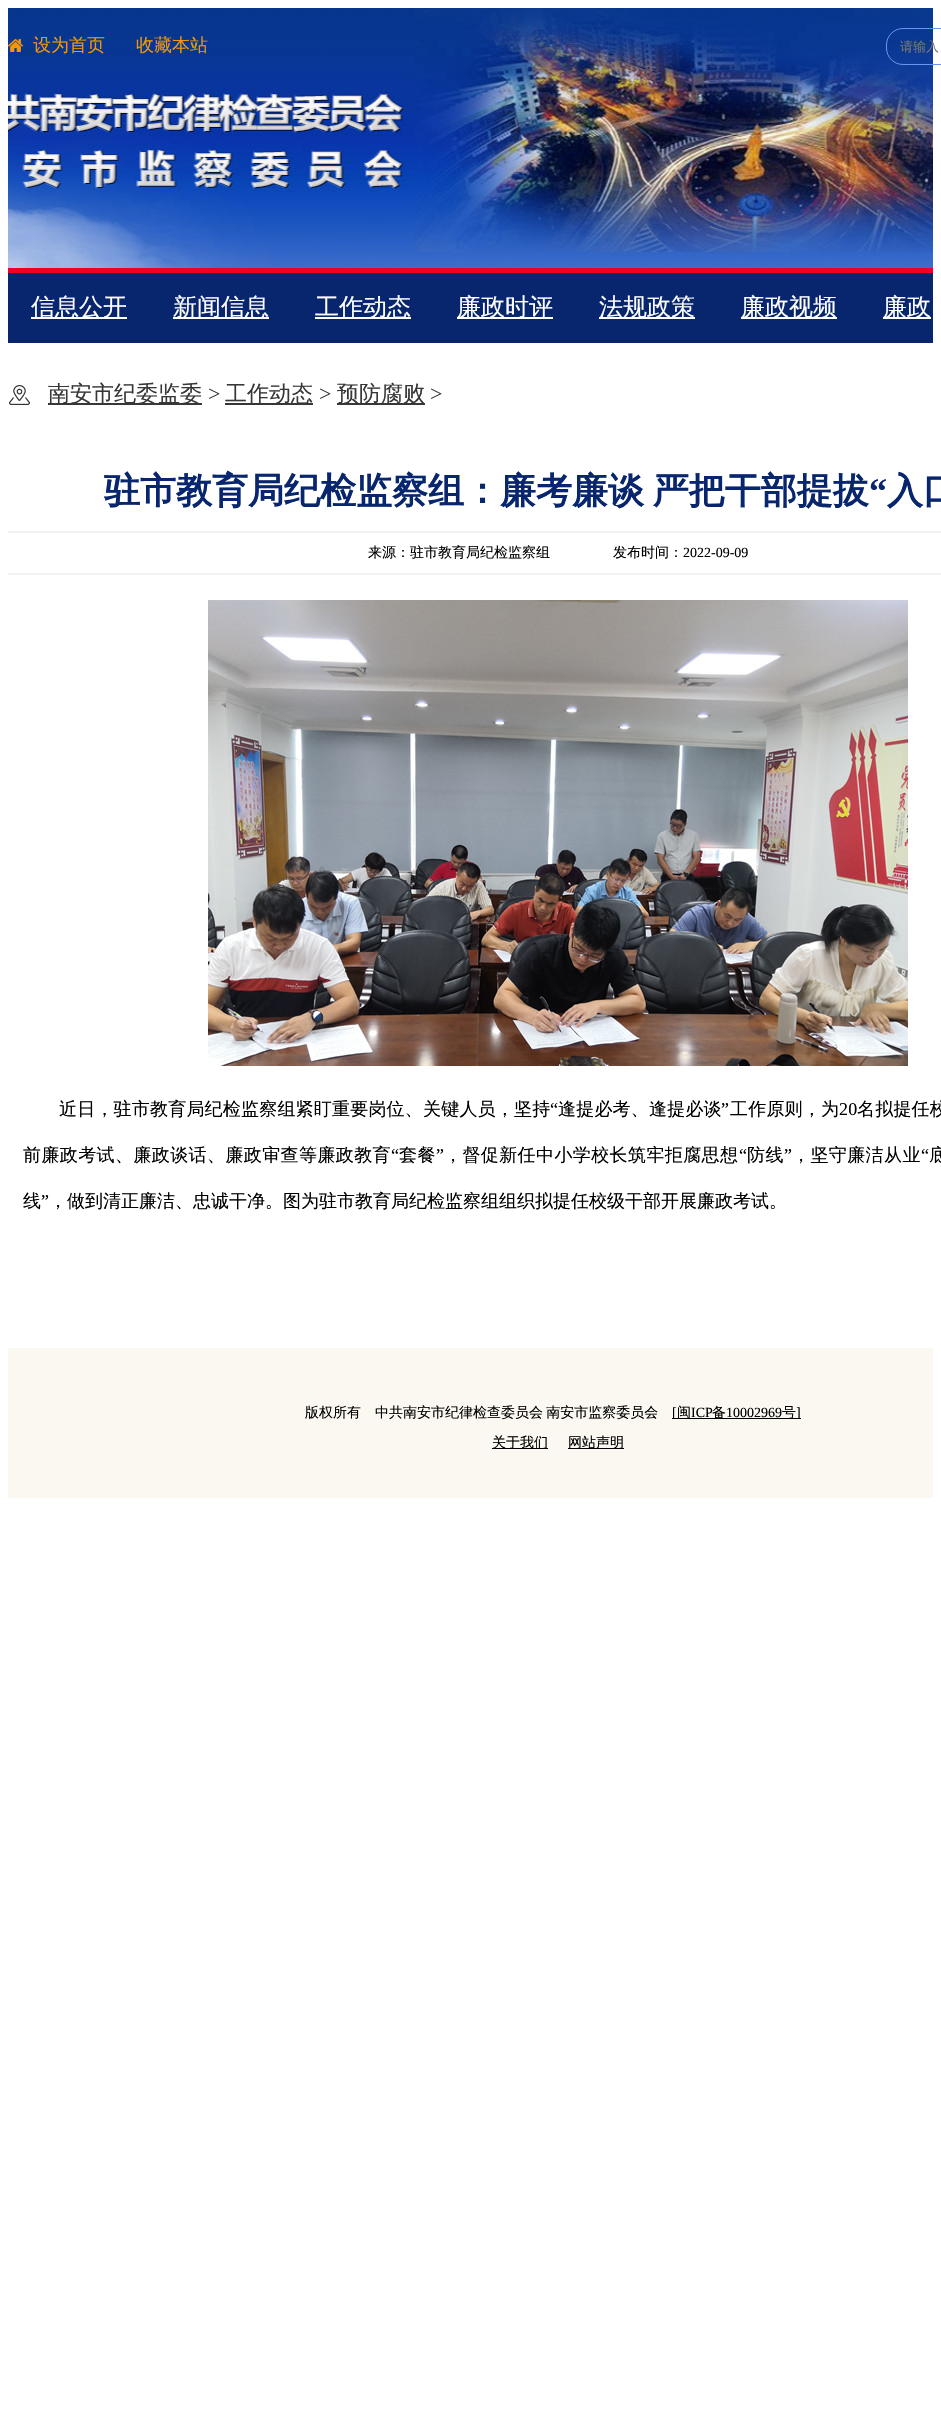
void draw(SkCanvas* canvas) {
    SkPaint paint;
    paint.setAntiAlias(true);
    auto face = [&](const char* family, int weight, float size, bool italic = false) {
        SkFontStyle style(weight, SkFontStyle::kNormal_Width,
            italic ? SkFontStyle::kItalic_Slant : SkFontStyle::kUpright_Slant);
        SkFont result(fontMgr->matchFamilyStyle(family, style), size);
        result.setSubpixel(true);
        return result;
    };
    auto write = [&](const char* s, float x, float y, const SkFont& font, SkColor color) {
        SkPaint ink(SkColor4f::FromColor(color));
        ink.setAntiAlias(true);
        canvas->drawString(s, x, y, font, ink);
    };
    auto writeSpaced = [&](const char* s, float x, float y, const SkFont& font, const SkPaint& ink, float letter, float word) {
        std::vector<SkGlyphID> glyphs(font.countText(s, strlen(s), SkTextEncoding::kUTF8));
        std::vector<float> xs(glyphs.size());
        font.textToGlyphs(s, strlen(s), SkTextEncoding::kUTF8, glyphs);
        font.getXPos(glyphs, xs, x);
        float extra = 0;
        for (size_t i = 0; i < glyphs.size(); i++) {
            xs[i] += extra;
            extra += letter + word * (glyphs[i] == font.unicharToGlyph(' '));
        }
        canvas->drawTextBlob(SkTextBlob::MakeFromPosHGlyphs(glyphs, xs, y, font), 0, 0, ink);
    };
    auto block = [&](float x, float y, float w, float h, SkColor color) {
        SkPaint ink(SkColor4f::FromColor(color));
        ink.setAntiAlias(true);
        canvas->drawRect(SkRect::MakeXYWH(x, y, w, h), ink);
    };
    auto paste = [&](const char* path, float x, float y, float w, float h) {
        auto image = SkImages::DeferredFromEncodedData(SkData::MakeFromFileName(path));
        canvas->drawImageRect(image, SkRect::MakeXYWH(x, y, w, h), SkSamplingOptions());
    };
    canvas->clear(SK_ColorWHITE);
    paste("pic1.png", 8, 8, 925, 260);
    paste("pic2.png", 8, 39, 15, 13);
    auto kFont1 = face("WenQuanYi Zen Hei", 500, 18);
    write("设为首页", 33, 51, kFont1, SkColorSetRGB(245, 151, 4));
    write("收藏本站", 136, 51, kFont1, SkColorSetRGB(245, 151, 4));
    paint.setStyle(SkPaint::kStroke_Style);
    paint.setStrokeWidth(1);
    paint.setColor(SkColorSetRGB(104, 150, 239));
    canvas->drawRoundRect(SkRect::MakeXYWH(886.5f, 28.5f, 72, 36), 16.5f, 16.5f, paint);
    auto kFont2 = face("WenQuanYi Zen Hei", 500, 13);
    write("请输入", 900, 51, kFont2, SkColorSetRGB(117, 117, 117));
    block(8, 273, 925, 70, SkColorSetRGB(8, 38, 110));
    block(8, 268, 925, 5, SkColorSetRGB(241, 0, 37));
    block(31, 317, 96, 2, SK_ColorWHITE);
    auto kFont3 = face("WenQuanYi Zen Hei", 500, 24);
    write("信息公开", 31, 315, kFont3, SK_ColorWHITE);
    block(173, 317, 96, 2, SK_ColorWHITE);
    write("新闻信息", 173, 315, kFont3, SK_ColorWHITE);
    block(315, 317, 96, 2, SK_ColorWHITE);
    write("工作动态", 315, 315, kFont3, SK_ColorWHITE);
    block(457, 317, 96, 2, SK_ColorWHITE);
    write("廉政时评", 457, 315, kFont3, SK_ColorWHITE);
    block(599, 317, 96, 2, SK_ColorWHITE);
    write("法规政策", 599, 315, kFont3, SK_ColorWHITE);
    block(741, 317, 96, 2, SK_ColorWHITE);
    write("廉政视频", 741, 315, kFont3, SK_ColorWHITE);
    block(883, 317, 48, 2, SK_ColorWHITE);
    write("廉政", 883, 315, kFont3, SK_ColorWHITE);
    paste("pic3.png", 9, 385, 21, 20);
    block(48, 403, 154, 2, SkColorSetRGB(55, 55, 55));
    auto kFont4 = face("WenQuanYi Zen Hei", 500, 22);
    write("南安市纪委监委", 48, 401, kFont4, SkColorSetRGB(55, 55, 55));
    auto kFont5 = face("Liberation Serif", 400, 22);
    write(">", 208, 401, kFont5, SkColorSetRGB(55, 55, 55));
    block(225, 403, 88, 2, SkColorSetRGB(55, 55, 55));
    write("工作动态", 225, 401, kFont4, SkColorSetRGB(55, 55, 55));
    write(">", 319, 401, kFont5, SkColorSetRGB(55, 55, 55));
    block(337, 403, 88, 2, SkColorSetRGB(55, 55, 55));
    write("预防腐败", 337, 401, kFont4, SkColorSetRGB(55, 55, 55));
    write(">", 430, 401, kFont5, SkColorSetRGB(55, 55, 55));
    auto kFont6 = face("WenQuanYi Zen Hei", 700, 36);
    paint.setStyle(SkPaint::kFill_Style);
    paint.setColor(SkColorSetRGB(8, 38, 110));
    writeSpaced("驻市教育局纪检监察组：廉考廉谈 严把干部提拔", 104, 503, kFont6, paint, 0, -2);
    auto kFont7 = face("Liberation Serif", 700, 36);
    write("“", 869, 503, kFont7, SkColorSetRGB(8, 38, 110));
    write("入口", 887, 503, kFont6, SkColorSetRGB(8, 38, 110));
    block(8, 531, 933, 2, SkColorSetRGB(242, 242, 242));
    block(8, 573, 933, 2, SkColorSetRGB(242, 242, 242));
    auto kFont8 = face("WenQuanYi Zen Hei", 500, 14);
    write("来源：驻市教育局纪检监察组", 368, 557, kFont8, SK_ColorBLACK);
    write("发布时间：", 613, 557, kFont8, SK_ColorBLACK);
    auto kFont9 = face("Liberation Serif", 400, 14);
    write("2022-09-09", 683, 557, kFont9, SK_ColorBLACK);
    paste("pic4.png", 208, 600, 700, 466);
    paint.setColor(SK_ColorBLACK);
    writeSpaced("近日，驻市教育局纪检监察组紧盯重要岗位、关键人员，坚持", 59, 1115, kFont1, paint, 0.2f, 0);
    auto kFont10 = face("Liberation Serif", 400, 18);
    writeSpaced("“", 550, 1115, kFont10, paint, 0.2f, 0);
    writeSpaced("逢提必考、逢提必谈", 558, 1115, kFont1, paint, 0.2f, 0);
    writeSpaced("”", 721, 1115, kFont10, paint, 0.2f, 0);
    writeSpaced("工作原则，为", 730, 1115, kFont1, paint, 0.2f, 0);
    writeSpaced("20", 839, 1115, kFont10, paint, 0.2f, 0);
    writeSpaced("名拟提任校", 857, 1115, kFont1, paint, 0.2f, 0);
    writeSpaced("前廉政考试、廉政谈话、廉政审查等廉政教育", 23, 1161, kFont1, paint, 0.4f, 0);
    writeSpaced("“", 391, 1161, kFont10, paint, 0.4f, 0);
    writeSpaced("套餐", 399, 1161, kFont1, paint, 0.4f, 0);
    writeSpaced("”", 436, 1161, kFont10, paint, 0.4f, 0);
    writeSpaced("，督促新任中小学校长筑牢拒腐思想", 444, 1161, kFont1, paint, 0.4f, 0);
    writeSpaced("“", 739, 1161, kFont10, paint, 0.4f, 0);
    writeSpaced("防线", 747, 1161, kFont1, paint, 0.4f, 0);
    writeSpaced("”", 784, 1161, kFont10, paint, 0.4f, 0);
    writeSpaced("，坚守廉洁从业", 792, 1161, kFont1, paint, 0.4f, 0);
    writeSpaced("“", 921, 1161, kFont10, paint, 0.4f, 0);
    writeSpaced("底", 929, 1161, kFont1, paint, 0.4f, 0);
    write("线", 23, 1207, kFont1, SK_ColorBLACK);
    write("”", 41, 1207, kFont10, SK_ColorBLACK);
    write("，做到清正廉洁、忠诚干净。图为驻市教育局纪检监察组组织拟提任校级干部开展廉政考试。", 49, 1207, kFont1, SK_ColorBLACK);
    block(8, 1348, 925, 150, SkColorSetRGB(251, 247, 241));
    writeSpaced("版权所有　中共南安市纪律检查委员会 南安市监察委员会", 305, 1417, kFont8, paint, 0, -1);
    block(672, 1418, 129, 1, SK_ColorBLACK);
    write("[", 672, 1417, kFont9, SK_ColorBLACK);
    write("闽", 677, 1417, kFont8, SK_ColorBLACK);
    write("ICP", 691, 1417, kFont9, SK_ColorBLACK);
    write("备", 712, 1417, kFont8, SK_ColorBLACK);
    write("10002969", 726, 1417, kFont9, SK_ColorBLACK);
    write("号", 782, 1417, kFont8, SK_ColorBLACK);
    write("]", 796, 1417, kFont9, SK_ColorBLACK);
    block(492, 1448, 56, 1, SK_ColorBLACK);
    write("关于我们", 492, 1447, kFont8, SK_ColorBLACK);
    block(568, 1448, 56, 1, SK_ColorBLACK);
    write("网站声明", 568, 1447, kFont8, SK_ColorBLACK);
}
